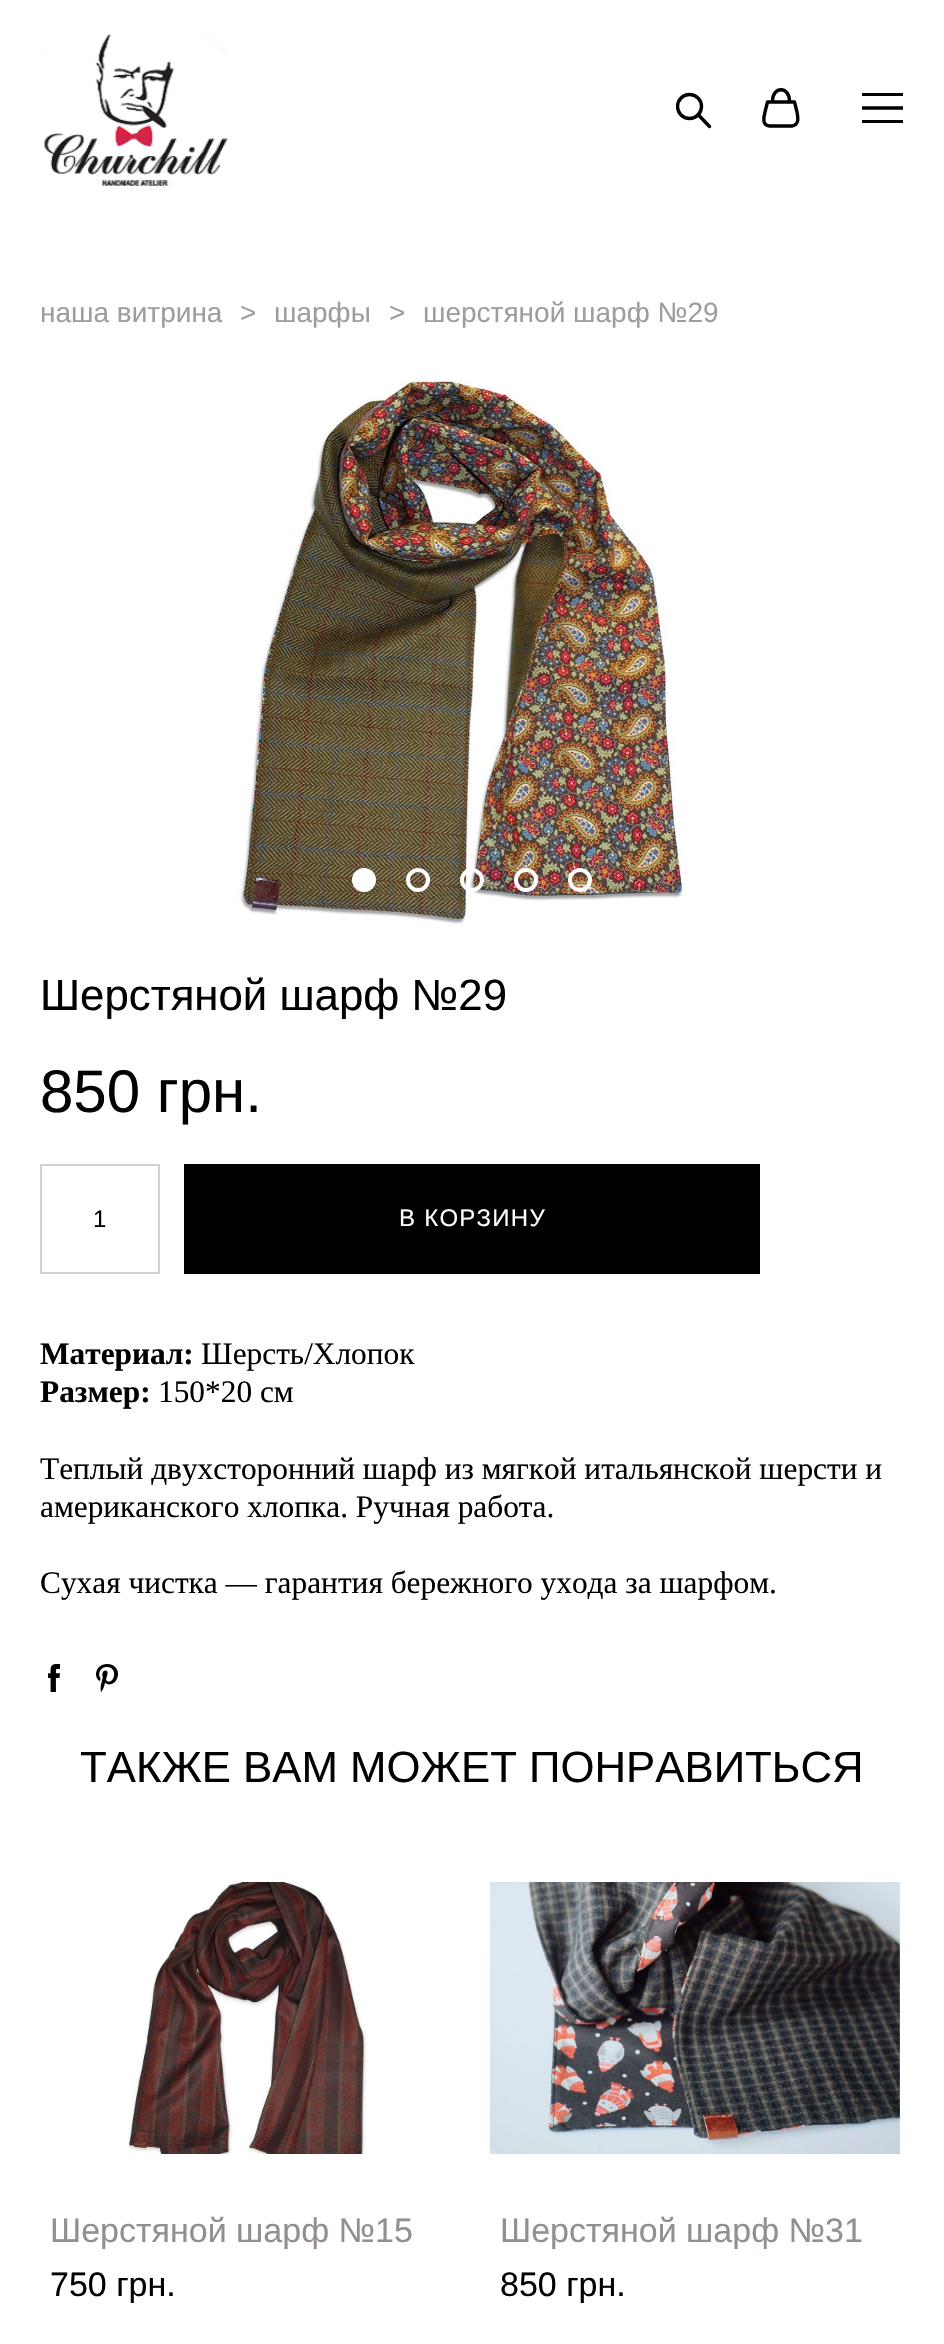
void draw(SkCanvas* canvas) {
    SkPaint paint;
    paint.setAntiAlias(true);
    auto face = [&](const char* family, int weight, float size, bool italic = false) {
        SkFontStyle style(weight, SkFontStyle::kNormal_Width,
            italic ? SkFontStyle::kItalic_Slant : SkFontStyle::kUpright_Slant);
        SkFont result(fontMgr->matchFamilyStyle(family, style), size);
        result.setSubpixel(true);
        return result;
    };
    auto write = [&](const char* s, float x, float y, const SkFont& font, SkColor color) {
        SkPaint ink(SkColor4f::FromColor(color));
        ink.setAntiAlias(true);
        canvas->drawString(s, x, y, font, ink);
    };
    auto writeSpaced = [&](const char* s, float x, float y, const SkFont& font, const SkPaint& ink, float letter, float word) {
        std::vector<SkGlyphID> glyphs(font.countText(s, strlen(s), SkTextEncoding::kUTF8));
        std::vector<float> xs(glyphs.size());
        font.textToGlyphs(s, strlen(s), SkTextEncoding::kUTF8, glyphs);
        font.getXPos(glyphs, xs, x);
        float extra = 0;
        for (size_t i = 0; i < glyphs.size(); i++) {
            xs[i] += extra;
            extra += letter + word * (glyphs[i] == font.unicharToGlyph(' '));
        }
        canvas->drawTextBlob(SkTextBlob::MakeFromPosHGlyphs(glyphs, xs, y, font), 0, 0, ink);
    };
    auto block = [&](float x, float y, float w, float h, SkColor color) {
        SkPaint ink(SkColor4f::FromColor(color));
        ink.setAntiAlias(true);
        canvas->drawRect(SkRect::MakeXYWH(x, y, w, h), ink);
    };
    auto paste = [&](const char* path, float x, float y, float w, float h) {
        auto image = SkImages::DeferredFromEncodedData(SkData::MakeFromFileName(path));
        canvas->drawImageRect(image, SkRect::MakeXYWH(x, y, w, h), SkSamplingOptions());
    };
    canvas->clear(SK_ColorWHITE);
    paste("pic1.png", 40, 30, 188, 156);
    canvas->save();
    canvas->clipRect(SkRect::MakeXYWH(676, 88, 36, 40));
    paint.setStyle(SkPaint::kStroke_Style);
    paint.setStrokeWidth(3.4f);
    paint.setColor(SK_ColorBLACK);
    canvas->drawCircle(689.5f, 106.5f, 12, paint);
    canvas->restore();
    paint.setStrokeCap(SkPaint::kRound_Cap);
    paint.setStrokeJoin(SkPaint::kRound_Join);
    canvas->drawPath(SkPathBuilder().moveTo(698, 114.5f).lineTo(709.5f, 126.5f).detach(), paint);
    canvas->drawPath(SkPathBuilder().moveTo(794.5f, 102).lineTo(767.5f, 102).lineTo(765, 112).cubicTo(763.5f, 117.5f, 762, 125, 769.5f, 126).lineTo(792, 126).cubicTo(799.5f, 124.5f, 798, 117.5f, 797, 112).close().detach(), paint);
    paint.setStrokeCap(SkPaint::kButt_Cap);
    paint.setStrokeJoin(SkPaint::kMiter_Join);
    canvas->drawPath(SkPathBuilder().moveTo(772.5f, 101).cubicTo(772.5f, 86, 789.5f, 86, 789.5f, 101).detach(), paint);
    block(862, 93, 41, 3, SK_ColorBLACK);
    canvas->drawPath(SkPathBuilder().moveTo(862, 108).lineTo(903, 108).detach(), paint);
    block(862, 120, 41, 3, SK_ColorBLACK);
    auto kFont1 = face("Liberation Sans", 400, 28);
    write("наша витрина", 40, 322, kFont1, SkColorSetRGB(158, 156, 156));
    write(">", 240, 322, kFont1, SkColorSetRGB(158, 156, 156));
    write("шарфы", 274, 322, kFont1, SkColorSetRGB(158, 156, 156));
    write(">", 389, 322, kFont1, SkColorSetRGB(158, 156, 156));
    write("шерстяной шарф №29", 423, 322, kFont1, SkColorSetRGB(158, 156, 156));
    paste("pic2.png", 235, 377, 451, 547);
    paint.setStyle(SkPaint::kFill_Style);
    paint.setColor(SK_ColorWHITE);
    canvas->drawCircle(364, 880, 10, paint);
    paint.setStyle(SkPaint::kStroke_Style);
    paint.setStrokeWidth(4);
    canvas->drawCircle(364, 880, 10, paint);
    canvas->drawCircle(418, 880, 10, paint);
    canvas->drawCircle(472, 880, 10, paint);
    canvas->drawCircle(526, 880, 10, paint);
    canvas->drawCircle(580, 880, 10, paint);
    auto kFont2 = face("Liberation Sans", 400, 43.75f);
    write("Шерстяной шарф №29", 40, 1010, kFont2, SK_ColorBLACK);
    auto kFont3 = face("Liberation Sans", 400, 60);
    write("850 грн.", 40, 1112, kFont3, SK_ColorBLACK);
    paint.setStrokeWidth(2);
    paint.setColor(SkColorSetRGB(209, 209, 209));
    canvas->drawRect(SkRect::MakeXYWH(41, 1165, 118, 108), paint);
    auto kFont4 = face("Liberation Sans", 400, 24);
    write("1", 93, 1227, kFont4, SK_ColorBLACK);
    block(184, 1164, 576, 110, SK_ColorBLACK);
    paint.setStyle(SkPaint::kFill_Style);
    paint.setColor(SK_ColorWHITE);
    writeSpaced("В КОРЗИНУ", 399, 1226, kFont4, paint, 1.25f, 0);
    auto kFont5 = face("Liberation Serif", 700, 31.35f);
    write("Материал:", 40, 1364, kFont5, SK_ColorBLACK);
    auto kFont6 = face("Liberation Serif", 400, 31.35f);
    write("Шерсть/Хлопок", 201, 1364, kFont6, SK_ColorBLACK);
    write("Размер:", 40, 1402, kFont5, SK_ColorBLACK);
    write("150*20 см", 158, 1402, kFont6, SK_ColorBLACK);
    write("Теплый двухсторонний шарф из мягкой итальянской шерсти и", 40, 1479, kFont6, SK_ColorBLACK);
    write("американского хлопка. Ручная работа.", 40, 1517, kFont6, SK_ColorBLACK);
    write("Сухая чистка — гарантия бережного ухода за шарфом.", 40, 1593, kFont6, SK_ColorBLACK);
    paste("pic3.png", 48, 1664, 12, 28);
    paste("pic4.png", 96, 1664, 22, 28);
    write("ТАКЖЕ ВАМ МОЖЕТ ПОНРАВИТЬСЯ", 80, 1782, kFont2, SK_ColorBLACK);
    paste("pic5.png", 127, 1882, 240, 272);
    auto kFont7 = face("Liberation Sans", 400, 34);
    write("Шерстяной шарф №15", 50, 2242, kFont7, SkColorSetRGB(148, 142, 142));
    write("750 грн.", 50, 2296, kFont7, SK_ColorBLACK);
    paste("pic6.png", 490, 1882, 410, 272);
    write("Шерстяной шарф №31", 500, 2242, kFont7, SkColorSetRGB(148, 142, 142));
    write("850 грн.", 500, 2296, kFont7, SK_ColorBLACK);
}
